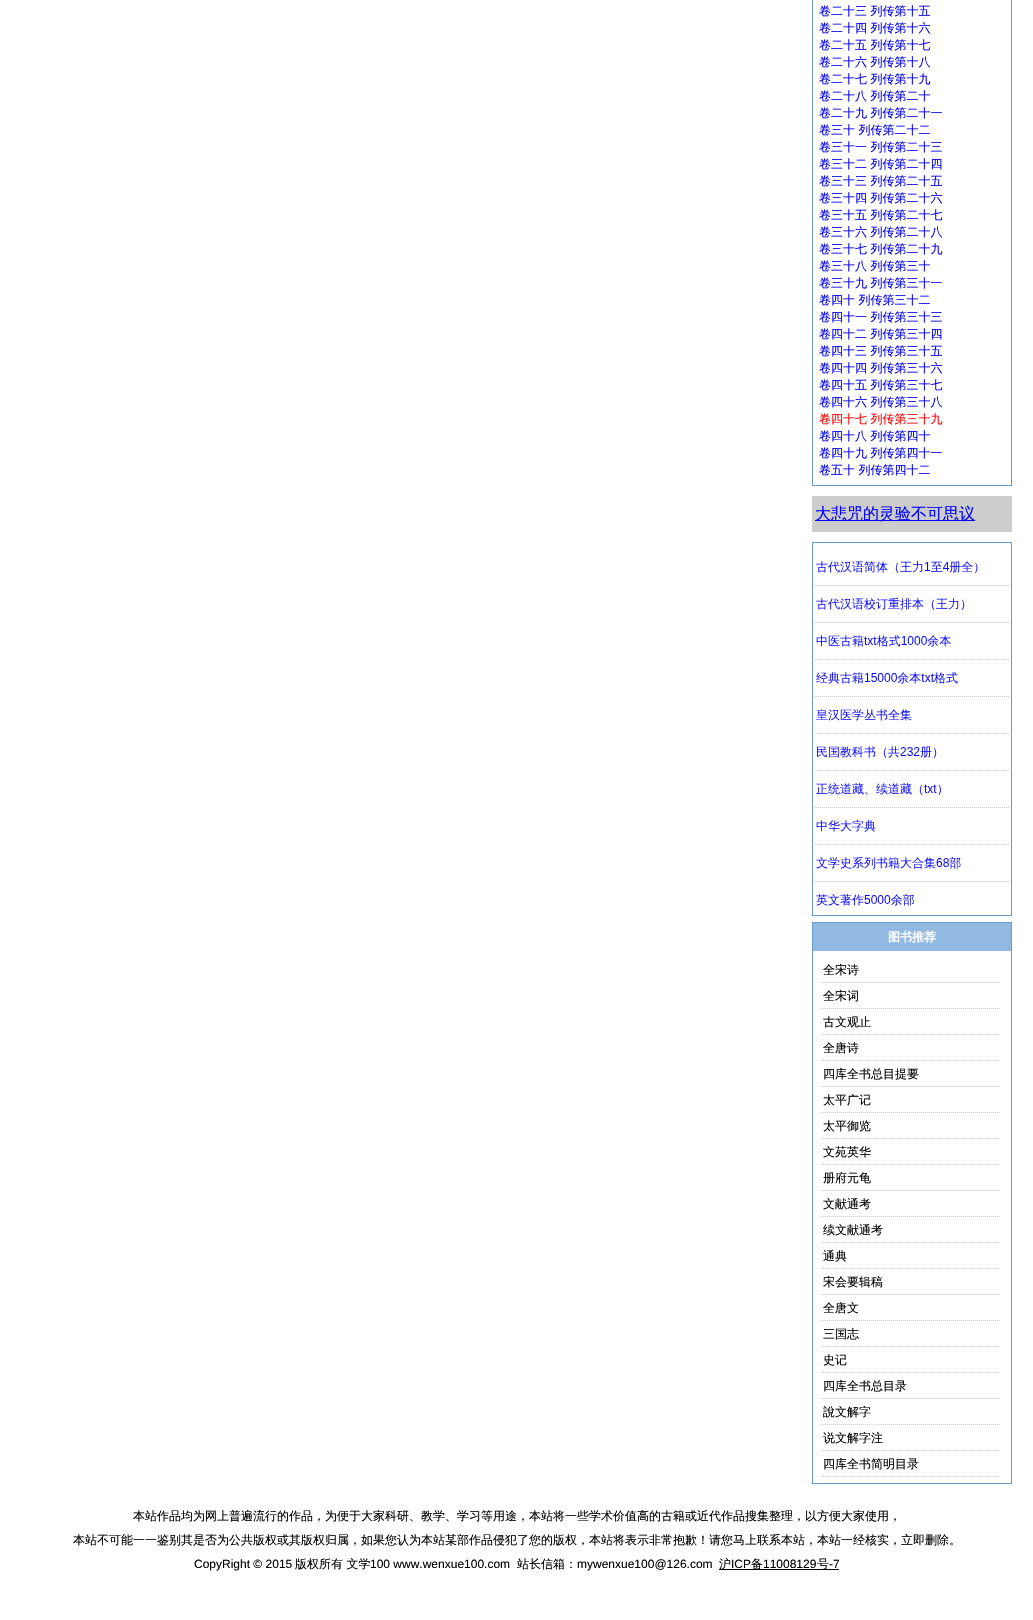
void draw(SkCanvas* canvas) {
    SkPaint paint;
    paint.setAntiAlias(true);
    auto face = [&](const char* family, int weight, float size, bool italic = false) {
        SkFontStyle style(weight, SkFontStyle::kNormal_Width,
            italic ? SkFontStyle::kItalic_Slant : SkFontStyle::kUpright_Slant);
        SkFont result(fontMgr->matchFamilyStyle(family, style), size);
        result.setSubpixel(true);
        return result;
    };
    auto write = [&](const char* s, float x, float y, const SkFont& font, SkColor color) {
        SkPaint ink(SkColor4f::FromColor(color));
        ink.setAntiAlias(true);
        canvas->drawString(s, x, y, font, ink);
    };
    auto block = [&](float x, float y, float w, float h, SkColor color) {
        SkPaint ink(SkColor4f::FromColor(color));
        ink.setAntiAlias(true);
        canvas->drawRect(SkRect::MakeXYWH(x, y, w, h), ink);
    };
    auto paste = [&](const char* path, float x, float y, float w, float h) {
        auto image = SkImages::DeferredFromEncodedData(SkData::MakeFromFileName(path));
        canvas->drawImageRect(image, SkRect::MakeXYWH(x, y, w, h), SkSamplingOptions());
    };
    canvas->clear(SK_ColorWHITE);
    paint.setStyle(SkPaint::kStroke_Style);
    paint.setStrokeWidth(1);
    paint.setColor(SkColorSetRGB(102, 153, 204));
    canvas->drawRect(SkRect::MakeXYWH(812.5f, -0.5f, 199, 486), paint);
    auto kFont1 = face("WenQuanYi Zen Hei", 500, 12);
    write("卷二十三 列传第十五", 819, 15, kFont1, SkColorSetRGB(0, 0, 238));
    write("卷二十四 列传第十六", 819, 32, kFont1, SkColorSetRGB(0, 0, 238));
    write("卷二十五 列传第十七", 819, 49, kFont1, SkColorSetRGB(0, 0, 238));
    write("卷二十六 列传第十八", 819, 66, kFont1, SkColorSetRGB(0, 0, 238));
    write("卷二十七 列传第十九", 819, 83, kFont1, SkColorSetRGB(0, 0, 238));
    write("卷二十八 列传第二十", 819, 100, kFont1, SkColorSetRGB(0, 0, 238));
    write("卷二十九 列传第二十一", 819, 117, kFont1, SkColorSetRGB(0, 0, 238));
    write("卷三十 列传第二十二", 819, 134, kFont1, SkColorSetRGB(0, 0, 238));
    write("卷三十一 列传第二十三", 819, 151, kFont1, SkColorSetRGB(0, 0, 238));
    write("卷三十二 列传第二十四", 819, 168, kFont1, SkColorSetRGB(0, 0, 238));
    write("卷三十三 列传第二十五", 819, 185, kFont1, SkColorSetRGB(0, 0, 238));
    write("卷三十四 列传第二十六", 819, 202, kFont1, SkColorSetRGB(0, 0, 238));
    write("卷三十五 列传第二十七", 819, 219, kFont1, SkColorSetRGB(0, 0, 238));
    write("卷三十六 列传第二十八", 819, 236, kFont1, SkColorSetRGB(0, 0, 238));
    write("卷三十七 列传第二十九", 819, 253, kFont1, SkColorSetRGB(0, 0, 238));
    write("卷三十八 列传第三十", 819, 270, kFont1, SkColorSetRGB(0, 0, 238));
    write("卷三十九 列传第三十一", 819, 287, kFont1, SkColorSetRGB(0, 0, 238));
    write("卷四十 列传第三十二", 819, 304, kFont1, SkColorSetRGB(0, 0, 238));
    write("卷四十一 列传第三十三", 819, 321, kFont1, SkColorSetRGB(0, 0, 238));
    write("卷四十二 列传第三十四", 819, 338, kFont1, SkColorSetRGB(0, 0, 238));
    write("卷四十三 列传第三十五", 819, 355, kFont1, SkColorSetRGB(0, 0, 238));
    write("卷四十四 列传第三十六", 819, 372, kFont1, SkColorSetRGB(0, 0, 238));
    write("卷四十五 列传第三十七", 819, 389, kFont1, SkColorSetRGB(0, 0, 238));
    write("卷四十六 列传第三十八", 819, 406, kFont1, SkColorSetRGB(0, 0, 238));
    write("卷四十七 列传第三十九", 819, 423, kFont1, SkColorSetRGB(255, 0, 0));
    write("卷四十八 列传第四十", 819, 440, kFont1, SkColorSetRGB(0, 0, 238));
    write("卷四十九 列传第四十一", 819, 457, kFont1, SkColorSetRGB(0, 0, 238));
    write("卷五十 列传第四十二", 819, 474, kFont1, SkColorSetRGB(0, 0, 238));
    block(812, 496, 200, 36, SkColorSetRGB(204, 204, 204));
    block(815, 520, 160, 1, SkColorSetRGB(0, 0, 255));
    auto kFont2 = face("WenQuanYi Zen Hei", 500, 16);
    write("大悲咒的灵验不可思议", 815, 519, kFont2, SkColorSetRGB(0, 0, 255));
    canvas->drawRect(SkRect::MakeXYWH(812.5f, 542.5f, 199, 373), paint);
    paste("pic1.png", 815, 561, 194, 345);
    canvas->drawRect(SkRect::MakeXYWH(812.5f, 922.5f, 199, 561), paint);
    block(813, 923, 198, 28, SkColorSetRGB(145, 185, 226));
    auto kFont3 = face("WenQuanYi Zen Hei", 700, 12);
    write("图书推荐", 888, 941, kFont3, SK_ColorWHITE);
    paint.setColor(SkColorSetRGB(204, 204, 204));
    paint.setPathEffect(SkDashPathEffect::Make({{1, 1}}, 0));
    canvas->drawPath(SkPathBuilder().moveTo(821, 982.5f).lineTo(1001, 982.5f).detach(), paint);
    paint.setPathEffect(nullptr);
    write("全宋诗", 823, 974, kFont1, SK_ColorBLACK);
    paint.setPathEffect(SkDashPathEffect::Make({{1, 1}}, 0));
    canvas->drawPath(SkPathBuilder().moveTo(821, 1008.5f).lineTo(1001, 1008.5f).detach(), paint);
    paint.setPathEffect(nullptr);
    write("全宋词", 823, 1000, kFont1, SK_ColorBLACK);
    paint.setPathEffect(SkDashPathEffect::Make({{1, 1}}, 0));
    canvas->drawPath(SkPathBuilder().moveTo(821, 1034.5f).lineTo(1001, 1034.5f).detach(), paint);
    paint.setPathEffect(nullptr);
    write("古文观止", 823, 1026, kFont1, SK_ColorBLACK);
    paint.setPathEffect(SkDashPathEffect::Make({{1, 1}}, 0));
    canvas->drawPath(SkPathBuilder().moveTo(821, 1060.5f).lineTo(1001, 1060.5f).detach(), paint);
    paint.setPathEffect(nullptr);
    write("全唐诗", 823, 1052, kFont1, SK_ColorBLACK);
    paint.setPathEffect(SkDashPathEffect::Make({{1, 1}}, 0));
    canvas->drawPath(SkPathBuilder().moveTo(821, 1086.5f).lineTo(1001, 1086.5f).detach(), paint);
    paint.setPathEffect(nullptr);
    write("四库全书总目提要", 823, 1078, kFont1, SK_ColorBLACK);
    paint.setPathEffect(SkDashPathEffect::Make({{1, 1}}, 0));
    canvas->drawPath(SkPathBuilder().moveTo(821, 1112.5f).lineTo(1001, 1112.5f).detach(), paint);
    paint.setPathEffect(nullptr);
    write("太平广记", 823, 1104, kFont1, SK_ColorBLACK);
    paint.setPathEffect(SkDashPathEffect::Make({{1, 1}}, 0));
    canvas->drawPath(SkPathBuilder().moveTo(821, 1138.5f).lineTo(1001, 1138.5f).detach(), paint);
    paint.setPathEffect(nullptr);
    write("太平御览", 823, 1130, kFont1, SK_ColorBLACK);
    paint.setPathEffect(SkDashPathEffect::Make({{1, 1}}, 0));
    canvas->drawPath(SkPathBuilder().moveTo(821, 1164.5f).lineTo(1001, 1164.5f).detach(), paint);
    paint.setPathEffect(nullptr);
    write("文苑英华", 823, 1156, kFont1, SK_ColorBLACK);
    paint.setPathEffect(SkDashPathEffect::Make({{1, 1}}, 0));
    canvas->drawPath(SkPathBuilder().moveTo(821, 1190.5f).lineTo(1001, 1190.5f).detach(), paint);
    paint.setPathEffect(nullptr);
    write("册府元龟", 823, 1182, kFont1, SK_ColorBLACK);
    paint.setPathEffect(SkDashPathEffect::Make({{1, 1}}, 0));
    canvas->drawPath(SkPathBuilder().moveTo(821, 1216.5f).lineTo(1001, 1216.5f).detach(), paint);
    paint.setPathEffect(nullptr);
    write("文献通考", 823, 1208, kFont1, SK_ColorBLACK);
    paint.setPathEffect(SkDashPathEffect::Make({{1, 1}}, 0));
    canvas->drawPath(SkPathBuilder().moveTo(821, 1242.5f).lineTo(1001, 1242.5f).detach(), paint);
    paint.setPathEffect(nullptr);
    write("续文献通考", 823, 1234, kFont1, SK_ColorBLACK);
    paint.setPathEffect(SkDashPathEffect::Make({{1, 1}}, 0));
    canvas->drawPath(SkPathBuilder().moveTo(821, 1268.5f).lineTo(1001, 1268.5f).detach(), paint);
    paint.setPathEffect(nullptr);
    write("通典", 823, 1260, kFont1, SK_ColorBLACK);
    paint.setPathEffect(SkDashPathEffect::Make({{1, 1}}, 0));
    canvas->drawPath(SkPathBuilder().moveTo(821, 1294.5f).lineTo(1001, 1294.5f).detach(), paint);
    paint.setPathEffect(nullptr);
    write("宋会要辑稿", 823, 1286, kFont1, SK_ColorBLACK);
    paint.setPathEffect(SkDashPathEffect::Make({{1, 1}}, 0));
    canvas->drawPath(SkPathBuilder().moveTo(821, 1320.5f).lineTo(1001, 1320.5f).detach(), paint);
    paint.setPathEffect(nullptr);
    write("全唐文", 823, 1312, kFont1, SK_ColorBLACK);
    paint.setPathEffect(SkDashPathEffect::Make({{1, 1}}, 0));
    canvas->drawPath(SkPathBuilder().moveTo(821, 1346.5f).lineTo(1001, 1346.5f).detach(), paint);
    paint.setPathEffect(nullptr);
    write("三国志", 823, 1338, kFont1, SK_ColorBLACK);
    paint.setPathEffect(SkDashPathEffect::Make({{1, 1}}, 0));
    canvas->drawPath(SkPathBuilder().moveTo(821, 1372.5f).lineTo(1001, 1372.5f).detach(), paint);
    paint.setPathEffect(nullptr);
    write("史记", 823, 1364, kFont1, SK_ColorBLACK);
    paint.setPathEffect(SkDashPathEffect::Make({{1, 1}}, 0));
    canvas->drawPath(SkPathBuilder().moveTo(821, 1398.5f).lineTo(1001, 1398.5f).detach(), paint);
    paint.setPathEffect(nullptr);
    write("四库全书总目录", 823, 1390, kFont1, SK_ColorBLACK);
    paint.setPathEffect(SkDashPathEffect::Make({{1, 1}}, 0));
    canvas->drawPath(SkPathBuilder().moveTo(821, 1424.5f).lineTo(1001, 1424.5f).detach(), paint);
    paint.setPathEffect(nullptr);
    write("說文解字", 823, 1416, kFont1, SK_ColorBLACK);
    paint.setPathEffect(SkDashPathEffect::Make({{1, 1}}, 0));
    canvas->drawPath(SkPathBuilder().moveTo(821, 1450.5f).lineTo(1001, 1450.5f).detach(), paint);
    paint.setPathEffect(nullptr);
    write("说文解字注", 823, 1442, kFont1, SK_ColorBLACK);
    paint.setPathEffect(SkDashPathEffect::Make({{1, 1}}, 0));
    canvas->drawPath(SkPathBuilder().moveTo(821, 1476.5f).lineTo(1001, 1476.5f).detach(), paint);
    paint.setPathEffect(nullptr);
    write("四库全书简明目录", 823, 1468, kFont1, SK_ColorBLACK);
    write("本站作品均为网上普遍流行的作品，为便于大家科研、教学、学习等用途，本站将一些学术价值高的古籍或近代作品搜集整理，以方便大家使用，", 133, 1520, kFont1, SK_ColorBLACK);
    write("本站不可能一一鉴别其是否为公共版权或其版权归属，如果您认为本站某部作品侵犯了您的版权，本站将表示非常抱歉！请您马上联系本站，本站一经核实，立即删除。", 73, 1544, kFont1, SK_ColorBLACK);
    auto kFont4 = face("Liberation Sans", 400, 12);
    write("CopyRight © 2015", 194, 1568, kFont4, SK_ColorBLACK);
    write("版权所有 文学", 295, 1568, kFont1, SK_ColorBLACK);
    write("100 www.wenxue100.com", 370, 1568, kFont4, SK_ColorBLACK);
    write("站长信箱：", 517, 1568, kFont1, SK_ColorBLACK);
    write("mywenxue100@126.com", 577, 1568, kFont4, SK_ColorBLACK);
    block(719, 1569, 120, 1, SK_ColorBLACK);
    write("沪", 719, 1568, kFont1, SK_ColorBLACK);
    write("ICP", 731, 1568, kFont4, SK_ColorBLACK);
    write("备", 751, 1568, kFont1, SK_ColorBLACK);
    write("11008129", 763, 1568, kFont4, SK_ColorBLACK);
    write("号", 817, 1568, kFont1, SK_ColorBLACK);
    write("-7", 829, 1568, kFont4, SK_ColorBLACK);
}
